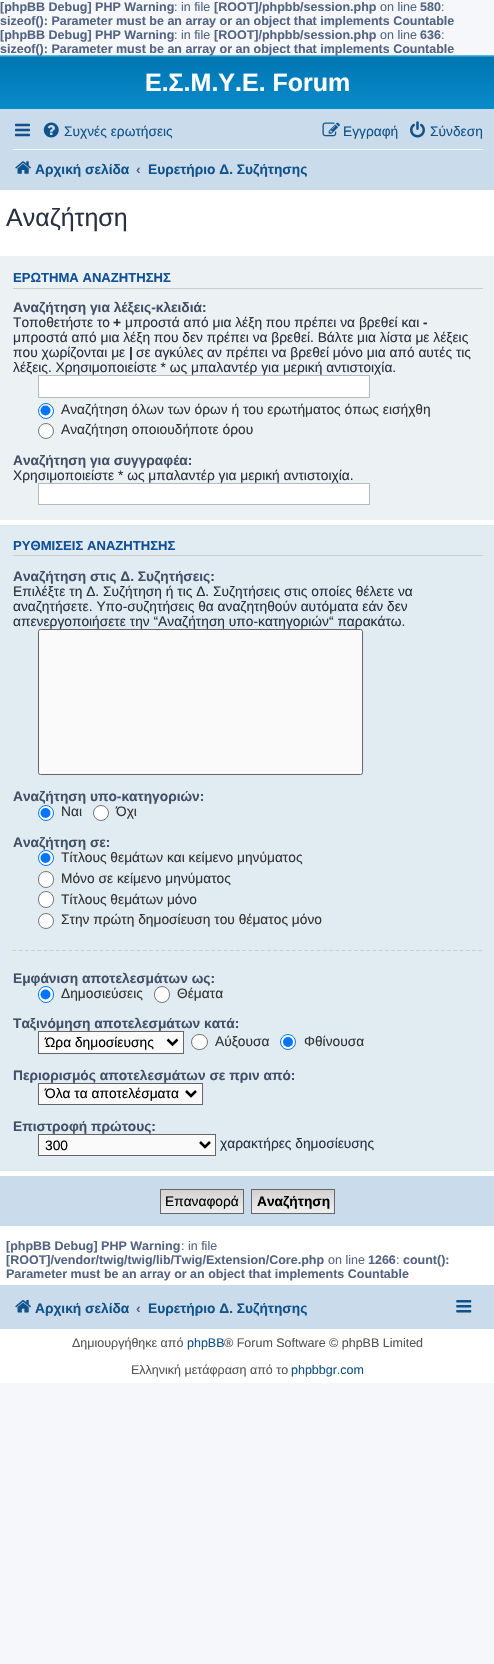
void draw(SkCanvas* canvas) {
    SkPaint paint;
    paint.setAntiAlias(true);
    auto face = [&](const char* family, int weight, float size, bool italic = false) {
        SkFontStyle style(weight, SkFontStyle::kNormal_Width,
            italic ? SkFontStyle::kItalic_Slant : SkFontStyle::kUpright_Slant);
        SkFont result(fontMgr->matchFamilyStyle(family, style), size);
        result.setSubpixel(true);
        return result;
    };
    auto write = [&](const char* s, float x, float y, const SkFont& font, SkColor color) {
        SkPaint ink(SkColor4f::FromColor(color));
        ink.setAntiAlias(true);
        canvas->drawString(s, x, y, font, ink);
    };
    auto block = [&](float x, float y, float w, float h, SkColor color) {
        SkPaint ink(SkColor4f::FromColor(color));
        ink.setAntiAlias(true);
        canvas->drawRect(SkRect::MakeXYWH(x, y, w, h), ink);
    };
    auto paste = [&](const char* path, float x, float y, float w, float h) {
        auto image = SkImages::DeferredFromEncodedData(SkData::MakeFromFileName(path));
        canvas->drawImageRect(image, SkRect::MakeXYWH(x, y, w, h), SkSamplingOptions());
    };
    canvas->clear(SkColorSetRGB(245, 247, 250));
    auto kFont1 = face("Liberation Sans", 700, 12.5f);
    write("[phpBB Debug] PHP Warning", 0, 11, kFont1, SkColorSetRGB(83, 100, 130));
    auto kFont2 = face("Liberation Sans", 400, 12.5f);
    write(": in file", 174, 11, kFont2, SkColorSetRGB(83, 100, 130));
    write("[ROOT]/phpbb/session.php", 214, 11, kFont1, SkColorSetRGB(83, 100, 130));
    write("on line", 380, 11, kFont2, SkColorSetRGB(83, 100, 130));
    write("580", 420, 11, kFont1, SkColorSetRGB(83, 100, 130));
    write(":", 441, 11, kFont2, SkColorSetRGB(83, 100, 130));
    write("sizeof(): Parameter must be an array or an object that implements Countable", 0, 25, kFont1, SkColorSetRGB(83, 100, 130));
    write("[phpBB Debug] PHP Warning", 0, 39, kFont1, SkColorSetRGB(83, 100, 130));
    write(": in file", 174, 39, kFont2, SkColorSetRGB(83, 100, 130));
    write("[ROOT]/phpbb/session.php", 214, 39, kFont1, SkColorSetRGB(83, 100, 130));
    write("on line", 380, 39, kFont2, SkColorSetRGB(83, 100, 130));
    write("636", 420, 39, kFont1, SkColorSetRGB(83, 100, 130));
    write(":", 441, 39, kFont2, SkColorSetRGB(83, 100, 130));
    {
        const SkColor colors[] = {SkColorSetRGB(106, 206, 255), SkColorSetRGB(0, 118, 177), SkColorSetRGB(18, 163, 235)};
        const float stops[] = {0, 0.02f, 1};
        const SkPoint ends[] = {{248, 55}, {248, 170}};
        paint.setShader(SkGradientShader::MakeLinear(ends, colors, stops, 3, SkTileMode::kClamp));
        paint.setAlpha(255);
    }
    canvas->drawRect(SkRect::MakeXYWH(0, 55, 494, 54), paint);
    write("sizeof(): Parameter must be an array or an object that implements Countable", 0, 53, kFont1, SkColorSetRGB(83, 100, 130));
    block(0, 190, 494, 1193, SK_ColorWHITE);
    auto kFont3 = face("Liberation Sans", 700, 25);
    write("Ε.Σ.Μ.Υ.Ε. Forum", 145, 91, kFont3, SK_ColorWHITE);
    block(0, 109, 494, 81, SkColorSetRGB(202, 220, 235));
    paste("pic1.png", 15, 123, 15, 14);
    paste("pic2.png", 43, 122, 16, 16);
    auto kFont4 = face("Liberation Sans", 400, 13.75f);
    write("Συχνές ερωτήσεις", 64, 136, kFont4, SkColorSetRGB(16, 82, 137));
    paste("pic3.png", 322, 122, 18, 15);
    write("Εγγραφή", 343, 136, kFont4, SkColorSetRGB(16, 82, 137));
    paste("pic4.png", 410, 121, 15, 17);
    write("Σύνδεση", 430, 136, kFont4, SkColorSetRGB(16, 82, 137));
    block(13, 149, 470, 1, SK_ColorWHITE);
    paste("pic5.png", 15, 161, 16, 13);
    auto kFont5 = face("Liberation Sans", 700, 13.75f);
    write("Αρχική σελίδα", 35, 174, kFont5, SkColorSetRGB(16, 82, 137));
    write("‹", 136, 174, kFont5, SkColorSetRGB(83, 100, 130));
    write("Ευρετήριο Δ. Συζήτησης", 148, 174, kFont5, SkColorSetRGB(16, 82, 137));
    auto kFont6 = face("Liberation Sans", 400, 25);
    write("Αναζήτηση", 6, 226, kFont6, SkColorSetRGB(40, 49, 63));
    block(0, 256, 494, 264, SkColorSetRGB(236, 241, 243));
    block(13, 288, 470, 1, SkColorSetRGB(204, 204, 204));
    auto kFont7 = face("Liberation Sans", 700, 13.1f);
    write("ΕΡΩΤΗΜΑ ΑΝΑΖΗΤΗΣΗΣ", 13, 282, kFont7, SkColorSetRGB(17, 80, 152));
    write("Αναζήτηση για λέξεις-κλειδιά:", 13, 312, kFont5, SkColorSetRGB(66, 80, 103));
    write("Τοποθετήστε το", 13, 327, kFont4, SkColorSetRGB(40, 49, 63));
    write("+", 113, 327, kFont5, SkColorSetRGB(40, 49, 63));
    write("μπροστά από μια λέξη που πρέπει να βρεθεί και", 125, 327, kFont4, SkColorSetRGB(40, 49, 63));
    write("-", 423, 327, kFont5, SkColorSetRGB(40, 49, 63));
    write("μπροστά από μια λέξη που δεν πρέπει να βρεθεί. Βάλτε μια λίστα με λέξεις", 13, 342, kFont4, SkColorSetRGB(40, 49, 63));
    write("που χωρίζονται με", 13, 357, kFont4, SkColorSetRGB(40, 49, 63));
    write("|", 129, 357, kFont5, SkColorSetRGB(40, 49, 63));
    write("σε αγκύλες αν πρέπει να βρεθεί μόνο μια από αυτές τις", 136, 357, kFont4, SkColorSetRGB(40, 49, 63));
    write("λέξεις. Χρησιμοποιείστε * ως μπαλαντέρ για μερική αντιστοιχία.", 13, 372, kFont4, SkColorSetRGB(40, 49, 63));
    paint.setShader(nullptr);
    paint.setColor(SK_ColorWHITE);
    canvas->drawRect(SkRect::MakeXYWH(38.5f, 375.5f, 331, 22), paint);
    paint.setStyle(SkPaint::kStroke_Style);
    paint.setStrokeWidth(1);
    paint.setColor(SkColorSetRGB(180, 186, 192));
    canvas->drawRect(SkRect::MakeXYWH(38.5f, 375.5f, 331, 22), paint);
    paint.setStyle(SkPaint::kFill_Style);
    paint.setColor(SK_ColorWHITE);
    canvas->drawCircle(46, 411, 7.5f, paint);
    paint.setStyle(SkPaint::kStroke_Style);
    paint.setColor(SkColorSetRGB(0, 117, 255));
    canvas->drawCircle(46, 411, 7.5f, paint);
    paint.setStyle(SkPaint::kFill_Style);
    canvas->drawCircle(45.5f, 410.5f, 5, paint);
    write("Αναζήτηση όλων των όρων ή του ερωτήματος όπως εισήχθη", 61, 414, kFont4, SkColorSetRGB(51, 51, 51));
    paint.setColor(SK_ColorWHITE);
    canvas->drawCircle(46, 431, 7.5f, paint);
    paint.setStyle(SkPaint::kStroke_Style);
    paint.setColor(SkColorSetRGB(118, 118, 118));
    canvas->drawCircle(46, 431, 7.5f, paint);
    write("Αναζήτηση οποιουδήποτε όρου", 61, 434, kFont4, SkColorSetRGB(51, 51, 51));
    write("Αναζήτηση για συγγραφέα:", 13, 465, kFont5, SkColorSetRGB(66, 80, 103));
    write("Χρησιμοποιείστε * ως μπαλαντέρ για μερική αντιστοιχία.", 13, 480, kFont4, SkColorSetRGB(40, 49, 63));
    paint.setStyle(SkPaint::kFill_Style);
    paint.setColor(SK_ColorWHITE);
    canvas->drawRect(SkRect::MakeXYWH(38.5f, 483.5f, 331, 21), paint);
    paint.setStyle(SkPaint::kStroke_Style);
    paint.setColor(SkColorSetRGB(180, 186, 192));
    canvas->drawRect(SkRect::MakeXYWH(38.5f, 483.5f, 331, 21), paint);
    block(0, 525, 494, 646, SkColorSetRGB(225, 235, 242));
    block(13, 555, 470, 1, SkColorSetRGB(204, 204, 204));
    write("ΡΥΘΜΙΣΕΙΣ ΑΝΑΖΗΤΗΣΗΣ", 13, 550, kFont7, SkColorSetRGB(17, 80, 152));
    write("Αναζήτηση στις Δ. Συζητήσεις:", 13, 581, kFont5, SkColorSetRGB(66, 80, 103));
    write("Επιλέξτε τη Δ. Συζήτηση ή τις Δ. Συζητήσεις στις οποίες θέλετε να", 13, 596, kFont4, SkColorSetRGB(40, 49, 63));
    write("αναζητήσετε. Υπο-συζητήσεις θα αναζητηθούν αυτόματα εάν δεν", 13, 611, kFont4, SkColorSetRGB(40, 49, 63));
    write("απενεργοποιήσετε την “Αναζήτηση υπο-κατηγοριών“ παρακάτω.", 13, 626, kFont4, SkColorSetRGB(40, 49, 63));
    paint.setStyle(SkPaint::kFill_Style);
    paint.setColor(SkColorSetRGB(250, 250, 250));
    canvas->drawRoundRect(SkRect::MakeXYWH(38.5f, 629.5f, 324, 145), 2, 2, paint);
    paint.setStyle(SkPaint::kStroke_Style);
    paint.setColor(SkColorSetRGB(102, 102, 102));
    canvas->drawRoundRect(SkRect::MakeXYWH(38.5f, 629.5f, 324, 145), 2, 2, paint);
    write("Αναζήτηση υπο-κατηγοριών:", 13, 801, kFont5, SkColorSetRGB(66, 80, 103));
    paint.setStyle(SkPaint::kFill_Style);
    paint.setColor(SK_ColorWHITE);
    canvas->drawCircle(46, 813, 7.5f, paint);
    paint.setStyle(SkPaint::kStroke_Style);
    paint.setColor(SkColorSetRGB(0, 117, 255));
    canvas->drawCircle(46, 813, 7.5f, paint);
    paint.setStyle(SkPaint::kFill_Style);
    canvas->drawCircle(45.5f, 813, 5, paint);
    write("Ναι", 61, 816, kFont4, SkColorSetRGB(51, 51, 51));
    paint.setColor(SK_ColorWHITE);
    canvas->drawCircle(101, 813, 7.5f, paint);
    paint.setStyle(SkPaint::kStroke_Style);
    paint.setColor(SkColorSetRGB(118, 118, 118));
    canvas->drawCircle(101, 813, 7.5f, paint);
    write("Όχι", 116, 816, kFont4, SkColorSetRGB(51, 51, 51));
    write("Αναζήτηση σε:", 13, 847, kFont5, SkColorSetRGB(66, 80, 103));
    paint.setStyle(SkPaint::kFill_Style);
    paint.setColor(SK_ColorWHITE);
    canvas->drawCircle(46, 858, 7.5f, paint);
    paint.setStyle(SkPaint::kStroke_Style);
    paint.setColor(SkColorSetRGB(0, 117, 255));
    canvas->drawCircle(46, 858, 7.5f, paint);
    paint.setStyle(SkPaint::kFill_Style);
    canvas->drawCircle(45.5f, 858, 5, paint);
    write("Τίτλους θεμάτων και κείμενο μηνύματος", 61, 862, kFont4, SkColorSetRGB(51, 51, 51));
    paint.setColor(SK_ColorWHITE);
    canvas->drawRoundRect(SkRect::MakeXYWH(38.5f, 871.5f, 15, 16), 7.5f, 7.5f, paint);
    paint.setStyle(SkPaint::kStroke_Style);
    paint.setColor(SkColorSetRGB(118, 118, 118));
    canvas->drawRoundRect(SkRect::MakeXYWH(38.5f, 871.5f, 15, 16), 7.5f, 7.5f, paint);
    write("Μόνο σε κείμενο μηνύματος", 61, 883, kFont4, SkColorSetRGB(51, 51, 51));
    paint.setStyle(SkPaint::kFill_Style);
    paint.setColor(SK_ColorWHITE);
    canvas->drawRoundRect(SkRect::MakeXYWH(38.5f, 891.5f, 15, 16), 7.5f, 7.5f, paint);
    paint.setStyle(SkPaint::kStroke_Style);
    paint.setColor(SkColorSetRGB(118, 118, 118));
    canvas->drawRoundRect(SkRect::MakeXYWH(38.5f, 891.5f, 15, 16), 7.5f, 7.5f, paint);
    write("Τίτλους θεμάτων μόνο", 61, 904, kFont4, SkColorSetRGB(51, 51, 51));
    paint.setStyle(SkPaint::kFill_Style);
    paint.setColor(SK_ColorWHITE);
    canvas->drawCircle(46, 921, 7.5f, paint);
    paint.setStyle(SkPaint::kStroke_Style);
    paint.setColor(SkColorSetRGB(118, 118, 118));
    canvas->drawCircle(46, 921, 7.5f, paint);
    write("Στην πρώτη δημοσίευση του θέματος μόνο", 61, 924, kFont4, SkColorSetRGB(51, 51, 51));
    paint.setStrokeWidth(1.2f);
    paint.setColor(SkColorSetRGB(204, 204, 204));
    paint.setPathEffect(SkDashPathEffect::Make({{3.75f, 2.46f}}, 0));
    canvas->drawPath(SkPathBuilder().moveTo(12.5f, 950.5f).lineTo(482.5f, 950.5f).detach(), paint);
    paint.setPathEffect(nullptr);
    write("Εμφάνιση αποτελεσμάτων ως:", 13, 983, kFont5, SkColorSetRGB(66, 80, 103));
    paint.setStyle(SkPaint::kFill_Style);
    paint.setColor(SK_ColorWHITE);
    canvas->drawRoundRect(SkRect::MakeXYWH(38.5f, 986.5f, 15, 16), 7.5f, 7.5f, paint);
    paint.setStyle(SkPaint::kStroke_Style);
    paint.setStrokeWidth(1);
    paint.setColor(SkColorSetRGB(0, 117, 255));
    canvas->drawRoundRect(SkRect::MakeXYWH(38.5f, 986.5f, 15, 16), 7.5f, 7.5f, paint);
    paint.setStyle(SkPaint::kFill_Style);
    canvas->drawCircle(45.5f, 994.5f, 5, paint);
    write("Δημοσιεύσεις", 61, 998, kFont4, SkColorSetRGB(51, 51, 51));
    paint.setColor(SK_ColorWHITE);
    canvas->drawRoundRect(SkRect::MakeXYWH(154.5f, 986.5f, 15, 16), 7.5f, 7.5f, paint);
    paint.setStyle(SkPaint::kStroke_Style);
    paint.setColor(SkColorSetRGB(118, 118, 118));
    canvas->drawRoundRect(SkRect::MakeXYWH(154.5f, 986.5f, 15, 16), 7.5f, 7.5f, paint);
    write("Θέματα", 177, 998, kFont4, SkColorSetRGB(51, 51, 51));
    write("Ταξινόμηση αποτελεσμάτων κατά:", 13, 1028, kFont5, SkColorSetRGB(66, 80, 103));
    paint.setStyle(SkPaint::kFill_Style);
    paint.setColor(SkColorSetRGB(250, 250, 250));
    canvas->drawRect(SkRect::MakeXYWH(38.5f, 1031.5f, 145, 22), paint);
    paint.setStyle(SkPaint::kStroke_Style);
    paint.setColor(SkColorSetRGB(102, 102, 102));
    canvas->drawRect(SkRect::MakeXYWH(38.5f, 1031.5f, 145, 22), paint);
    paint.setStrokeWidth(2.5f);
    paint.setColor(SK_ColorBLACK);
    canvas->drawPath(SkPathBuilder().moveTo(167.5f, 1039.5f).lineTo(172.5f, 1044.5f).lineTo(177.5f, 1039.5f).detach(), paint);
    write("Ώρα δημοσίευσης", 45, 1047, kFont4, SK_ColorBLACK);
    paint.setStyle(SkPaint::kFill_Style);
    paint.setColor(SK_ColorWHITE);
    canvas->drawRoundRect(SkRect::MakeXYWH(191.5f, 1034.5f, 16, 15), 7.5f, 7.5f, paint);
    paint.setStyle(SkPaint::kStroke_Style);
    paint.setStrokeWidth(1);
    paint.setColor(SkColorSetRGB(118, 118, 118));
    canvas->drawRoundRect(SkRect::MakeXYWH(191.5f, 1034.5f, 16, 15), 7.5f, 7.5f, paint);
    write("Αύξουσα", 215, 1046, kFont4, SkColorSetRGB(51, 51, 51));
    paint.setStyle(SkPaint::kFill_Style);
    paint.setColor(SK_ColorWHITE);
    canvas->drawCircle(288, 1042, 7.5f, paint);
    paint.setStyle(SkPaint::kStroke_Style);
    paint.setColor(SkColorSetRGB(0, 117, 255));
    canvas->drawCircle(288, 1042, 7.5f, paint);
    paint.setStyle(SkPaint::kFill_Style);
    canvas->drawCircle(288, 1042, 5, paint);
    write("Φθίνουσα", 304, 1046, kFont4, SkColorSetRGB(51, 51, 51));
    write("Περιορισμός αποτελεσμάτων σε πριν από:", 13, 1080, kFont5, SkColorSetRGB(66, 80, 103));
    paint.setColor(SkColorSetRGB(250, 250, 250));
    canvas->drawRect(SkRect::MakeXYWH(38.5f, 1083.5f, 164, 21), paint);
    paint.setStyle(SkPaint::kStroke_Style);
    paint.setColor(SkColorSetRGB(102, 102, 102));
    canvas->drawRect(SkRect::MakeXYWH(38.5f, 1083.5f, 164, 21), paint);
    paint.setStrokeWidth(2.5f);
    paint.setColor(SK_ColorBLACK);
    canvas->drawPath(SkPathBuilder().moveTo(186, 1091).lineTo(191, 1096).lineTo(196, 1091).detach(), paint);
    write("Όλα τα αποτελέσματα", 45, 1098, kFont4, SK_ColorBLACK);
    write("Επιστροφή πρώτους:", 13, 1131, kFont5, SkColorSetRGB(66, 80, 103));
    paint.setStyle(SkPaint::kFill_Style);
    paint.setColor(SkColorSetRGB(250, 250, 250));
    canvas->drawRect(SkRect::MakeXYWH(38.5f, 1134.5f, 177, 21), paint);
    paint.setStyle(SkPaint::kStroke_Style);
    paint.setStrokeWidth(1);
    paint.setColor(SkColorSetRGB(102, 102, 102));
    canvas->drawRect(SkRect::MakeXYWH(38.5f, 1134.5f, 177, 21), paint);
    paint.setStrokeWidth(2.5f);
    paint.setColor(SK_ColorBLACK);
    canvas->drawPath(SkPathBuilder().moveTo(200, 1142).lineTo(205, 1147).lineTo(210, 1142).detach(), paint);
    write("300", 45, 1150, kFont4, SK_ColorBLACK);
    write("χαρακτήρες δημοσίευσης", 220, 1148, kFont4, SkColorSetRGB(40, 49, 63));
    block(0, 1176, 494, 50, SkColorSetRGB(202, 220, 235));
    paint.setStyle(SkPaint::kFill_Style);
    {
        const SkColor colors[] = {SkColorSetRGB(210, 210, 210), SkColorSetRGB(239, 239, 239)};
        const float stops[] = {0, 1};
        const SkPoint ends[] = {{202, 1190}, {202, 1213}};
        paint.setShader(SkGradientShader::MakeLinear(ends, colors, stops, 2, SkTileMode::kClamp));
        paint.setAlpha(255);
    }
    canvas->drawRect(SkRect::MakeXYWH(161, 1190, 82, 23), paint);
    paint.setStyle(SkPaint::kStroke_Style);
    paint.setStrokeWidth(1);
    paint.setShader(nullptr);
    paint.setColor(SkColorSetRGB(102, 102, 102));
    canvas->drawRect(SkRect::MakeXYWH(160.5f, 1189.5f, 83, 24), paint);
    write("Επαναφορά", 165, 1206, kFont4, SK_ColorBLACK);
    paint.setStyle(SkPaint::kFill_Style);
    {
        const SkColor colors[] = {SkColorSetRGB(210, 210, 210), SkColorSetRGB(239, 239, 239)};
        const float stops[] = {0, 1};
        const SkPoint ends[] = {{293, 1190}, {293, 1213}};
        paint.setShader(SkGradientShader::MakeLinear(ends, colors, stops, 2, SkTileMode::kClamp));
        paint.setAlpha(255);
    }
    canvas->drawRect(SkRect::MakeXYWH(252, 1190, 82, 23), paint);
    paint.setStyle(SkPaint::kStroke_Style);
    paint.setShader(nullptr);
    paint.setColor(SkColorSetRGB(102, 102, 102));
    canvas->drawRect(SkRect::MakeXYWH(251.5f, 1189.5f, 83, 24), paint);
    write("Αναζήτηση", 257, 1206, kFont5, SK_ColorBLACK);
    write("[phpBB Debug] PHP Warning", 6, 1250, kFont1, SkColorSetRGB(83, 100, 130));
    write(": in file", 181, 1250, kFont2, SkColorSetRGB(83, 100, 130));
    write("[ROOT]/vendor/twig/twig/lib/Twig/Extension/Core.php", 6, 1264, kFont1, SkColorSetRGB(83, 100, 130));
    write("on line", 328, 1264, kFont2, SkColorSetRGB(83, 100, 130));
    write("1266", 368, 1264, kFont1, SkColorSetRGB(83, 100, 130));
    write(":", 396, 1264, kFont2, SkColorSetRGB(83, 100, 130));
    write("count():", 403, 1264, kFont1, SkColorSetRGB(83, 100, 130));
    write("Parameter must be an array or an object that implements Countable", 6, 1278, kFont1, SkColorSetRGB(83, 100, 130));
    block(0, 1285, 494, 44, SkColorSetRGB(202, 220, 235));
    paste("pic6.png", 15, 1300, 16, 13);
    write("Αρχική σελίδα", 35, 1313, kFont5, SkColorSetRGB(16, 82, 137));
    write("‹", 136, 1313, kFont5, SkColorSetRGB(83, 100, 130));
    write("Ευρετήριο Δ. Συζήτησης", 148, 1313, kFont5, SkColorSetRGB(16, 82, 137));
    paste("pic7.png", 456, 1300, 16, 13);
    write("Δημιουργήθηκε από", 72, 1347, kFont2, SkColorSetRGB(85, 85, 85));
    write("phpBB", 187, 1347, kFont2, SkColorSetRGB(16, 82, 137));
    write("® Forum Software © phpBB Limited", 224, 1347, kFont2, SkColorSetRGB(85, 85, 85));
    write("Ελληνική μετάφραση από το", 131, 1374, kFont2, SkColorSetRGB(85, 85, 85));
    write("phpbbgr.com", 291, 1374, kFont2, SkColorSetRGB(16, 82, 137));
}
